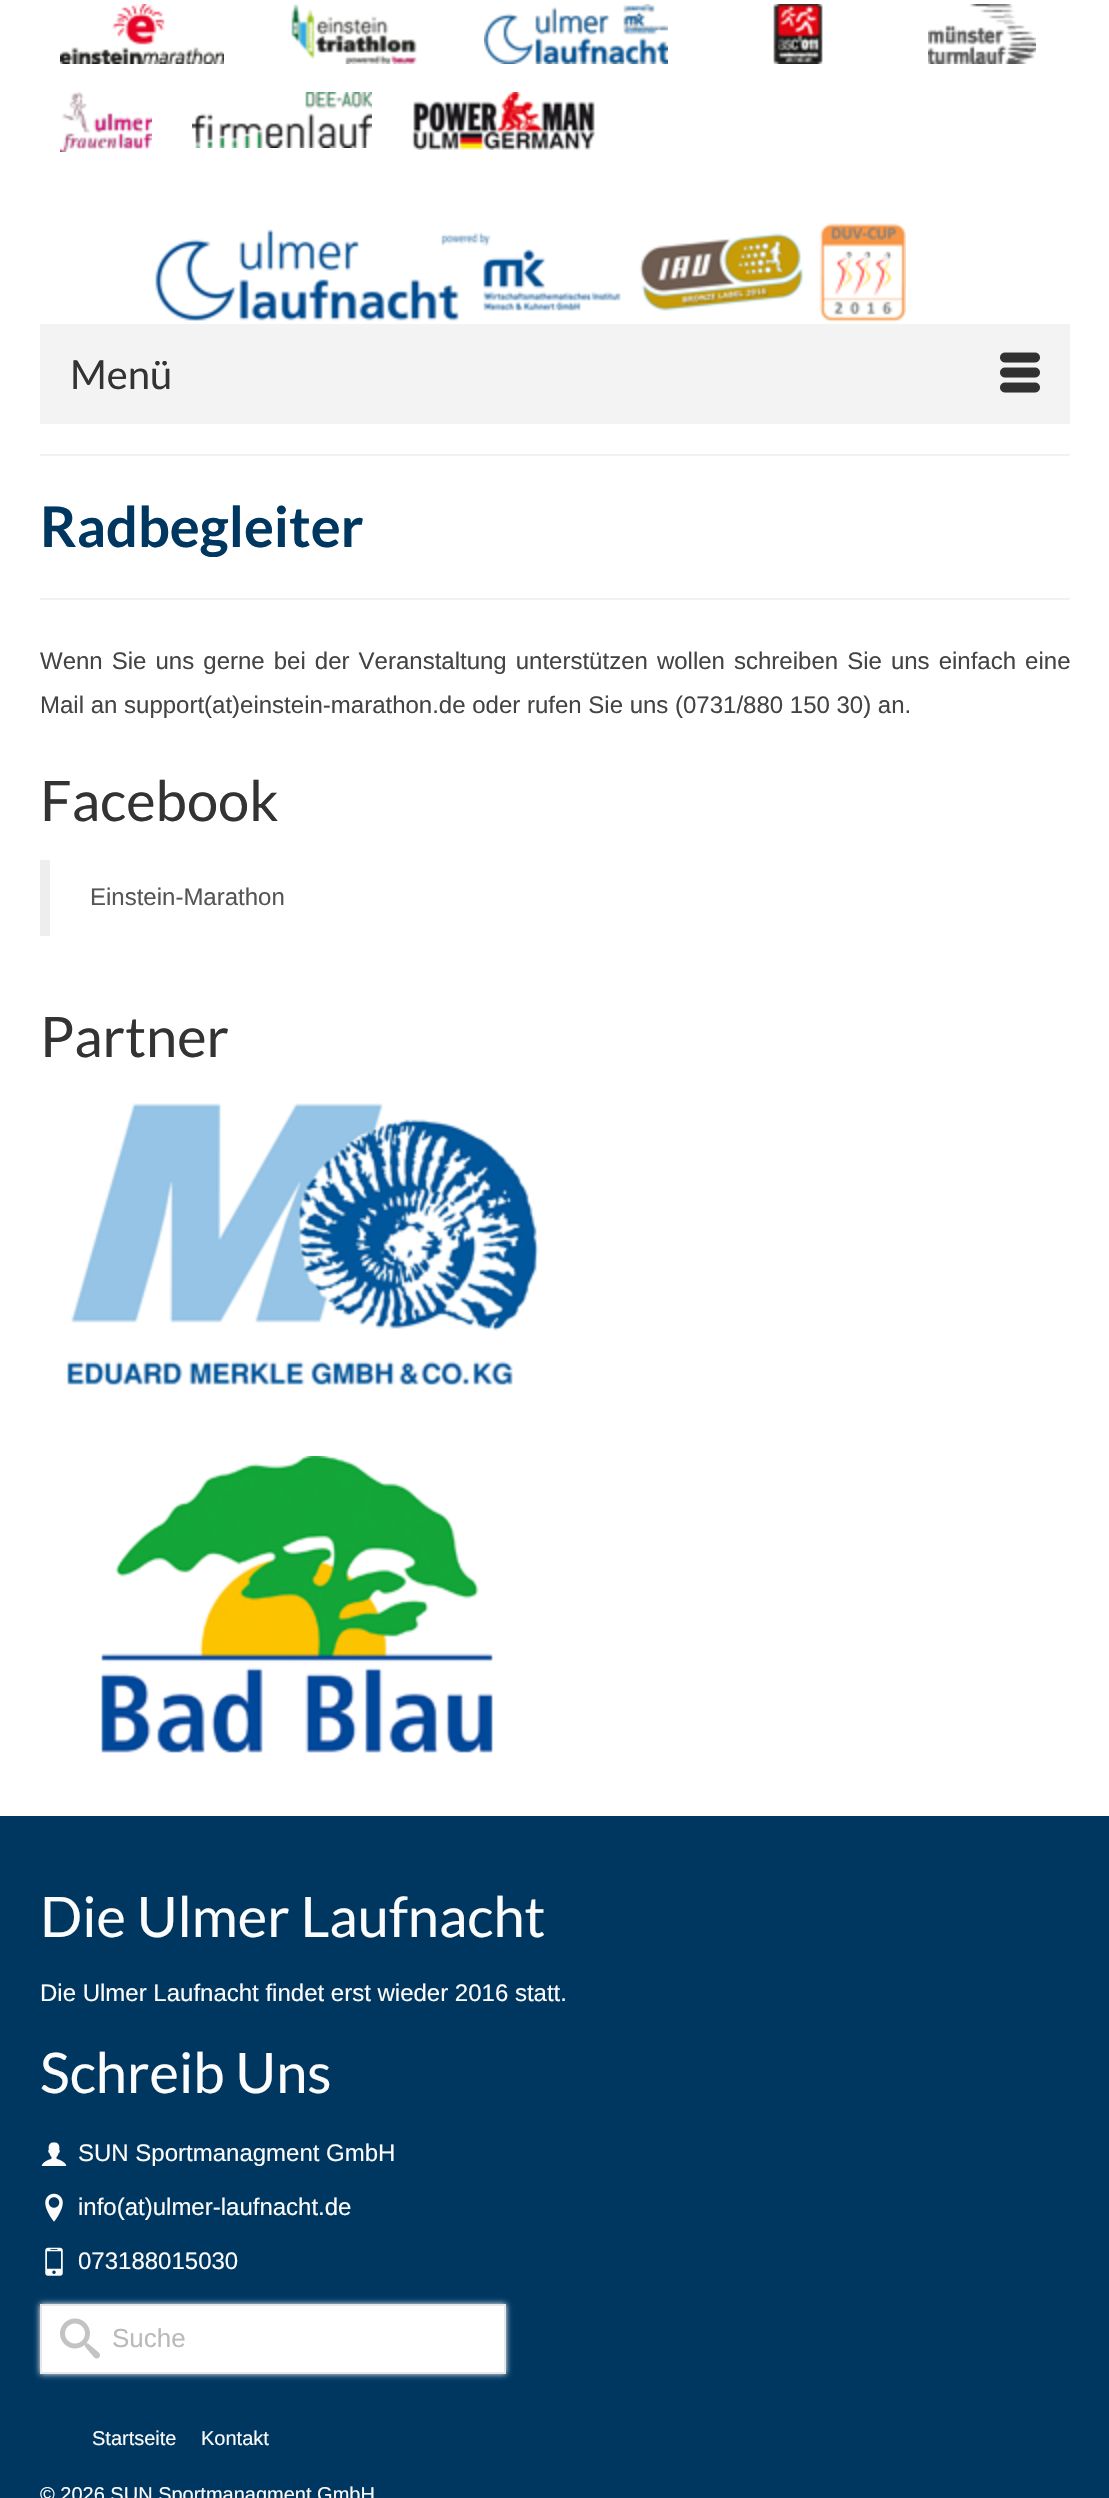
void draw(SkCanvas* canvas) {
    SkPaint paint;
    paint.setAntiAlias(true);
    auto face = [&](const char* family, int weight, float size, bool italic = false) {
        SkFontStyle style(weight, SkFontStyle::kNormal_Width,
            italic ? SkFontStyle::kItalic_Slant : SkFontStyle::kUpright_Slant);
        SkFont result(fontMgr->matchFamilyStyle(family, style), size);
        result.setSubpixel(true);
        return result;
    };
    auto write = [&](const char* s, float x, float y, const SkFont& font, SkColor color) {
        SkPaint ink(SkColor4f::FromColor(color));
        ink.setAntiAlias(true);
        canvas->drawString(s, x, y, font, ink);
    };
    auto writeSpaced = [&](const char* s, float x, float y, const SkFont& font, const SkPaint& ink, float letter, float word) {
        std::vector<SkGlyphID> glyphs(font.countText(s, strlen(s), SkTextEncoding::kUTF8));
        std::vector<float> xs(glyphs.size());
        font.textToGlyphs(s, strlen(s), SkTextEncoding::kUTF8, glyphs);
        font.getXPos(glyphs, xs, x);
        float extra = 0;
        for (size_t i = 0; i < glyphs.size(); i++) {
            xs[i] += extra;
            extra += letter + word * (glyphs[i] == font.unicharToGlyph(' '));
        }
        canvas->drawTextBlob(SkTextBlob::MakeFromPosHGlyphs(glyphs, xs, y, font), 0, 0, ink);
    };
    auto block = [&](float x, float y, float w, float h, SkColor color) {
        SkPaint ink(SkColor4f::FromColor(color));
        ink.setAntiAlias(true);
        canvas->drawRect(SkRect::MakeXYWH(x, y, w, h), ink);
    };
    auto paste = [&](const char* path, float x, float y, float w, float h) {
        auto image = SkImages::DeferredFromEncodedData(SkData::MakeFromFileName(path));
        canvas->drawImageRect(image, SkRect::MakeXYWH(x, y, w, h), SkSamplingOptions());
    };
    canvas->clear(SK_ColorWHITE);
    paste("pic1.png", 60, 4, 164, 60);
    paste("pic2.png", 291, 4, 126, 60);
    paste("pic3.png", 484, 4, 184, 60);
    paste("pic4.png", 773, 4, 50, 60);
    paste("pic5.png", 928, 4, 108, 60);
    paste("pic6.png", 60, 92, 92, 60);
    paste("pic7.png", 192, 92, 180, 56);
    paste("pic8.png", 412, 92, 184, 58);
    paste("pic9.png", 155, 223, 751, 99);
    block(40, 324, 1030, 100, SkColorSetRGB(243, 243, 243));
    auto kFont1 = face("Lato", 400, 40);
    write("Menü", 70, 389, kFont1, SkColorSetRGB(51, 51, 51));
    paste("pic10.png", 1000, 352, 40, 41);
    block(40, 454, 1030, 2, SkColorSetRGB(242, 242, 242));
    block(40, 598, 1030, 2, SkColorSetRGB(242, 242, 242));
    auto kFont2 = face("Lato", 700, 56);
    write("Radbegleiter", 40, 547, kFont2, SkColorSetRGB(0, 55, 96));
    auto kFont3 = face("Liberation Sans", 400, 24);
    paint.setColor(SkColorSetRGB(68, 68, 68));
    writeSpaced("Wenn Sie uns gerne bei der Veranstaltung unterstützen wollen schreiben Sie uns einfach eine", 40, 669, kFont3, paint, 0, 2.4f);
    write("Mail an support(at)einstein-marathon.de oder rufen Sie uns (0731/880 150 30) an.", 40, 713, kFont3, SkColorSetRGB(68, 68, 68));
    auto kFont4 = face("Lato", 400, 56);
    write("Facebook", 40, 821, kFont4, SkColorSetRGB(51, 51, 51));
    block(40, 860, 10, 76, SkColorSetRGB(238, 238, 238));
    write("Einstein-Marathon", 90, 905, kFont3, SkColorSetRGB(85, 85, 85));
    write("Partner", 40, 1057, kFont4, SkColorSetRGB(51, 51, 51));
    paste("pic11.png", 67, 1103, 472, 284);
    paste("pic12.png", 101, 1456, 392, 297);
    block(0, 1816, 1109, 682, SkColorSetRGB(0, 55, 96));
    write("Die Ulmer Laufnacht", 40, 1937, kFont4, SkColorSetRGB(252, 252, 252));
    write("Die Ulmer Laufnacht findet erst wieder 2016 statt.", 40, 2001, kFont3, SkColorSetRGB(252, 252, 252));
    write("Schreib Uns", 40, 2093, kFont4, SkColorSetRGB(252, 252, 252));
    paste("pic13.png", 41, 2142, 26, 24);
    write("SUN Sportmanagment GmbH", 78, 2161, kFont3, SkColorSetRGB(252, 252, 252));
    paste("pic14.png", 45, 2193, 18, 29);
    write("info(at)ulmer-laufnacht.de", 78, 2215, kFont3, SkColorSetRGB(252, 252, 252));
    paste("pic15.png", 45, 2247, 18, 29);
    write("073188015030", 78, 2269, kFont3, SkColorSetRGB(252, 252, 252));
    paint.setColor(SK_ColorWHITE);
    paint.setMaskFilter(SkMaskFilter::MakeBlur(kNormal_SkBlurStyle, 3));
    canvas->drawRect(SkRect::MakeXYWH(40, 2304, 466, 70), paint);
    paint.setMaskFilter(nullptr);
    canvas->drawRect(SkRect::MakeXYWH(41, 2305, 464, 68), paint);
    paint.setStyle(SkPaint::kStroke_Style);
    paint.setStrokeWidth(2);
    paint.setColor(SkColorSetRGB(231, 231, 231));
    canvas->drawRect(SkRect::MakeXYWH(41, 2305, 464, 68), paint);
    paste("pic16.png", 60, 2318, 40, 41);
    auto kFont5 = face("Liberation Sans", 400, 26);
    write("Suche", 112, 2347, kFont5, SkColorSetRGB(186, 186, 186));
    auto kFont6 = face("Liberation Sans", 400, 20);
    write("Startseite", 92, 2445, kFont6, SkColorSetRGB(252, 252, 252));
    write("Kontakt", 201, 2445, kFont6, SkColorSetRGB(252, 252, 252));
    write("© 2026 SUN Sportmanagment GmbH", 40, 2501, kFont6, SkColorSetRGB(252, 252, 252));
}
